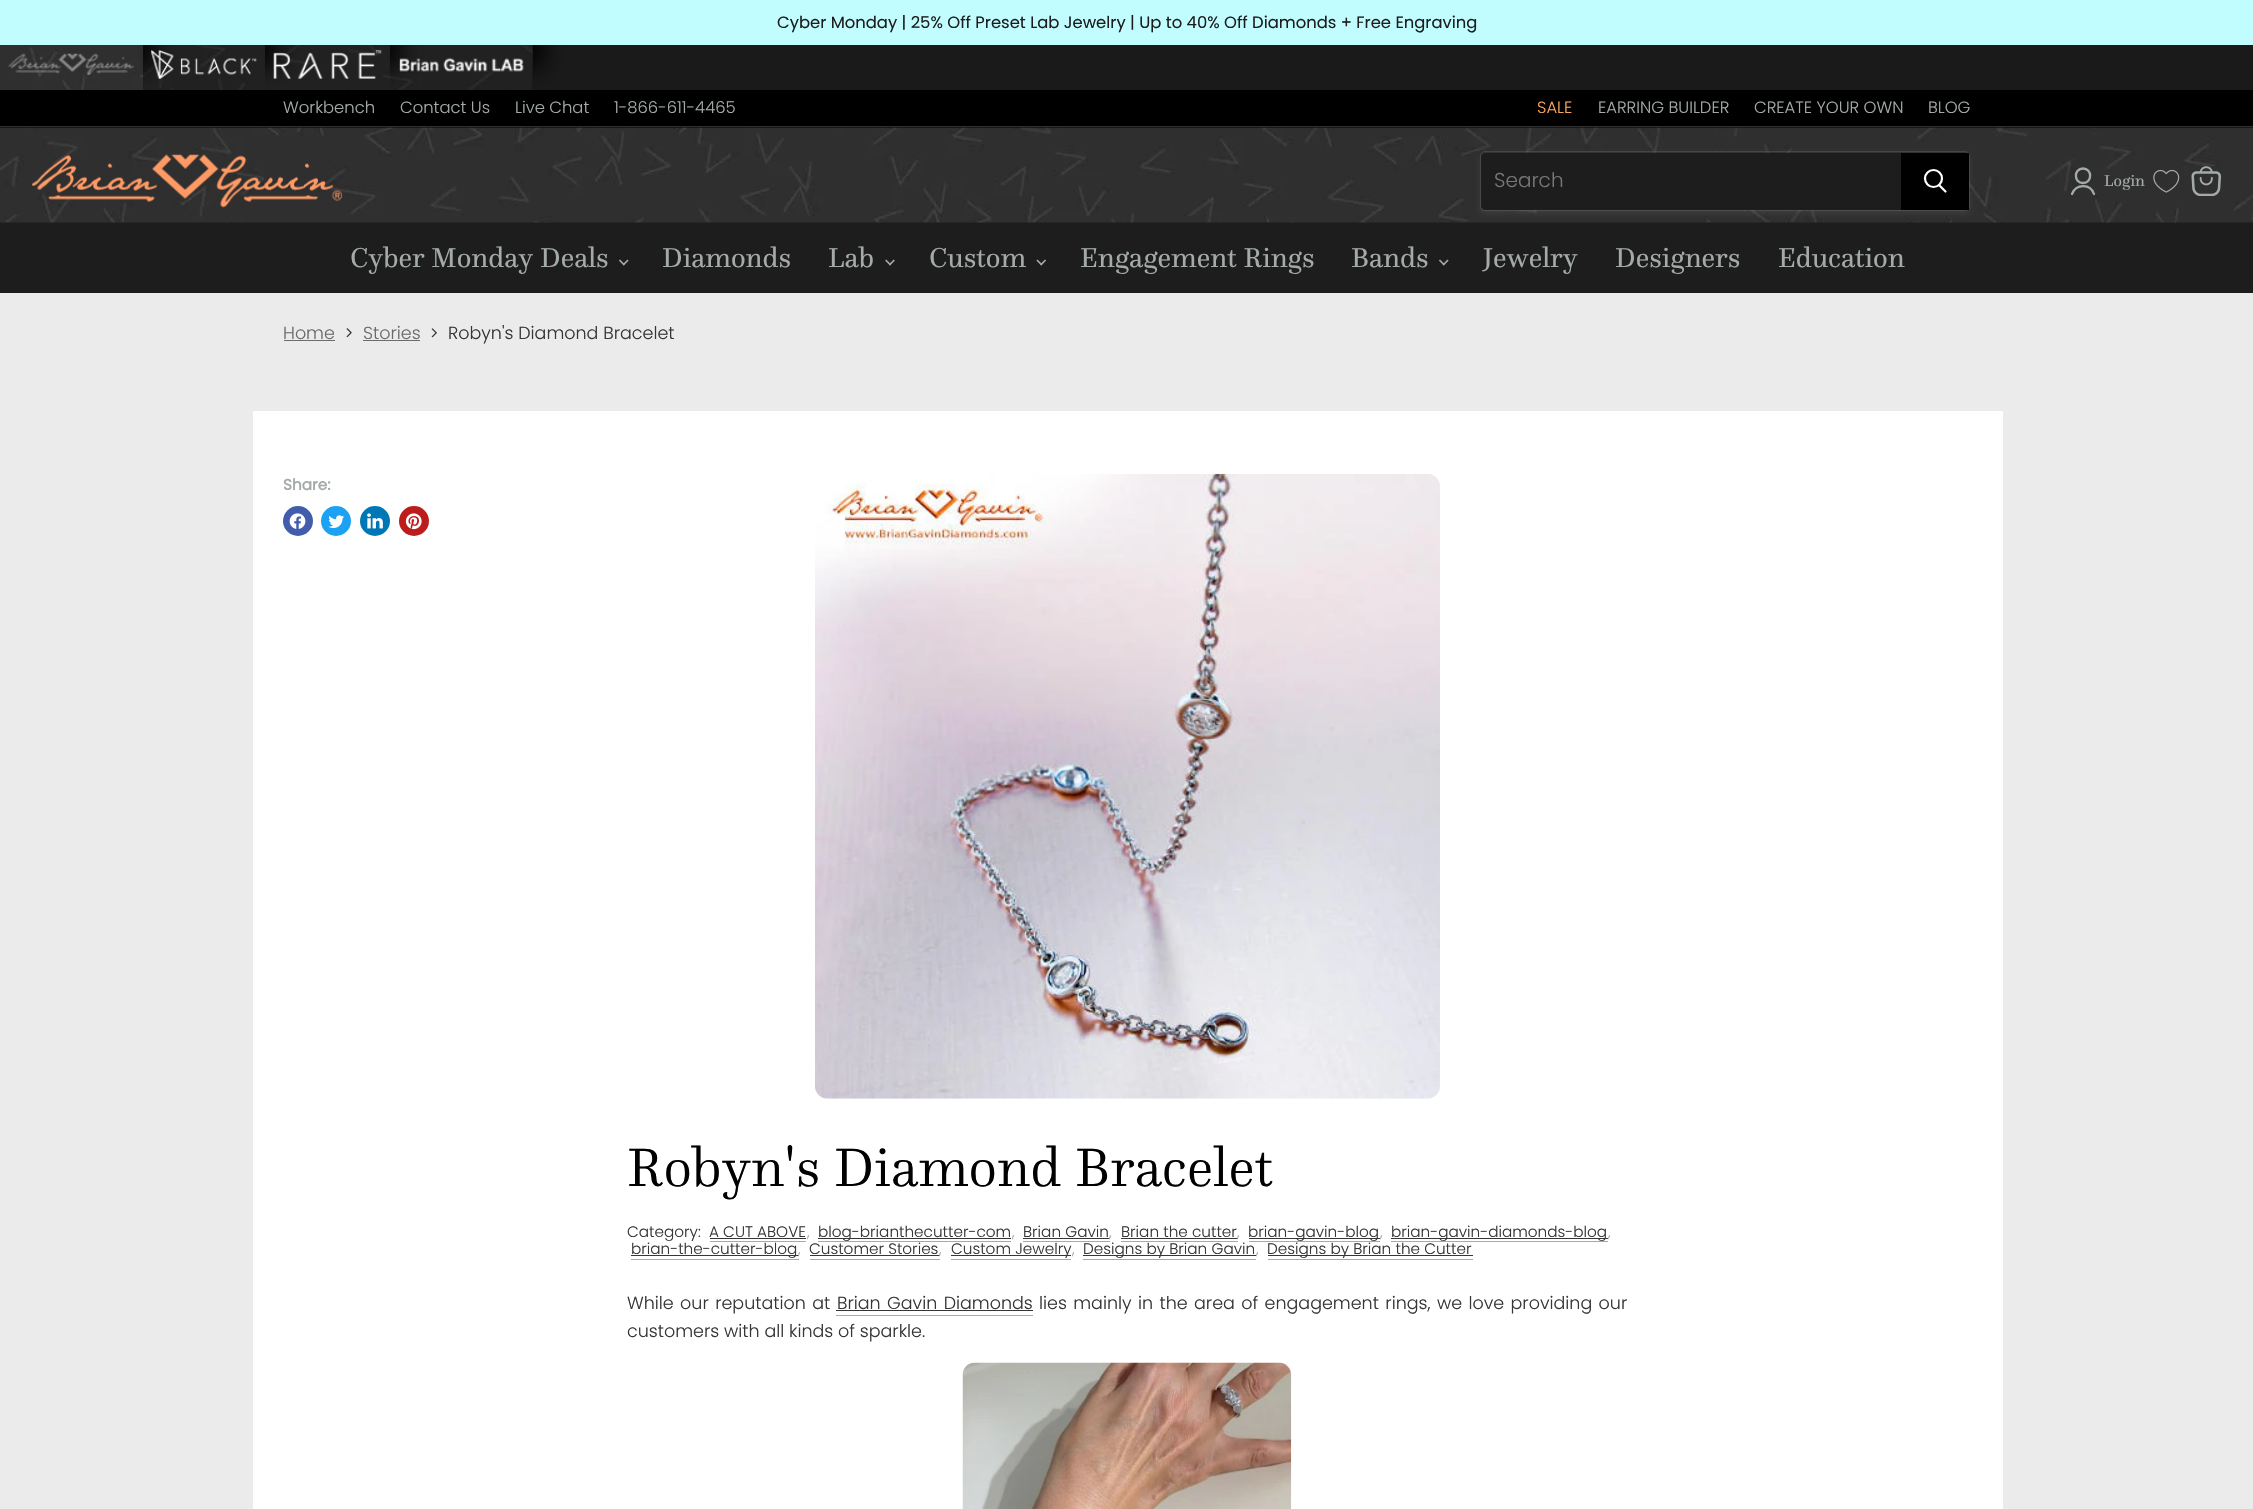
void draw(SkCanvas* canvas) {
    SkPaint paint;
    paint.setAntiAlias(true);
    auto face = [&](const char* family, int weight, float size, bool italic = false) {
        SkFontStyle style(weight, SkFontStyle::kNormal_Width,
            italic ? SkFontStyle::kItalic_Slant : SkFontStyle::kUpright_Slant);
        SkFont result(fontMgr->matchFamilyStyle(family, style), size);
        result.setSubpixel(true);
        return result;
    };
    auto write = [&](const char* s, float x, float y, const SkFont& font, SkColor color) {
        SkPaint ink(SkColor4f::FromColor(color));
        ink.setAntiAlias(true);
        canvas->drawString(s, x, y, font, ink);
    };
    auto writeSpaced = [&](const char* s, float x, float y, const SkFont& font, const SkPaint& ink, float letter, float word) {
        std::vector<SkGlyphID> glyphs(font.countText(s, strlen(s), SkTextEncoding::kUTF8));
        std::vector<float> xs(glyphs.size());
        font.textToGlyphs(s, strlen(s), SkTextEncoding::kUTF8, glyphs);
        font.getXPos(glyphs, xs, x);
        float extra = 0;
        for (size_t i = 0; i < glyphs.size(); i++) {
            xs[i] += extra;
            extra += letter + word * (glyphs[i] == font.unicharToGlyph(' '));
        }
        canvas->drawTextBlob(SkTextBlob::MakeFromPosHGlyphs(glyphs, xs, y, font), 0, 0, ink);
    };
    auto block = [&](float x, float y, float w, float h, SkColor color) {
        SkPaint ink(SkColor4f::FromColor(color));
        ink.setAntiAlias(true);
        canvas->drawRect(SkRect::MakeXYWH(x, y, w, h), ink);
    };
    auto paste = [&](const char* path, float x, float y, float w, float h) {
        auto image = SkImages::DeferredFromEncodedData(SkData::MakeFromFileName(path));
        canvas->drawImageRect(image, SkRect::MakeXYWH(x, y, w, h), SkSamplingOptions());
    };
    canvas->clear(SkColorSetRGB(235, 235, 235));
    block(0, 90, 2253, 38, SK_ColorBLACK);
    block(532, 45, 1721, 45, SkColorSetRGB(26, 26, 26));
    paste("pic1.png", 0, 45, 533, 45);
    canvas->save();
    canvas->clipPath(SkPathBuilder(SkPathFillType::kEvenOdd).moveTo(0, 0).lineTo(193, 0).lineTo(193, 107).lineTo(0, 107).close().moveTo(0, 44).lineTo(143, 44).lineTo(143, 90).lineTo(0, 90).close().detach(), true);
    paint.setColor(SK_ColorBLACK);
    paint.setMaskFilter(SkMaskFilter::MakeBlur(kNormal_SkBlurStyle, 12.5f));
    canvas->drawRect(SkRect::MakeXYWH(19, 29, 135, 39), paint);
    paint.setMaskFilter(nullptr);
    canvas->restore();
    canvas->save();
    canvas->clipPath(SkPathBuilder(SkPathFillType::kEvenOdd).moveTo(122, 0).lineTo(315, 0).lineTo(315, 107).lineTo(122, 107).close().moveTo(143, 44).lineTo(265, 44).lineTo(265, 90).lineTo(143, 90).close().detach(), true);
    paint.setMaskFilter(SkMaskFilter::MakeBlur(kNormal_SkBlurStyle, 12.5f));
    canvas->drawRect(SkRect::MakeXYWH(161, 29, 115, 39), paint);
    paint.setMaskFilter(nullptr);
    canvas->restore();
    block(143, 45, 122, 45, SkColorSetARGB(77, 0, 0, 0));
    canvas->save();
    canvas->clipPath(SkPathBuilder(SkPathFillType::kEvenOdd).moveTo(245, 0).lineTo(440, 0).lineTo(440, 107).lineTo(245, 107).close().moveTo(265, 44).lineTo(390, 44).lineTo(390, 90).lineTo(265, 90).close().detach(), true);
    paint.setMaskFilter(SkMaskFilter::MakeBlur(kNormal_SkBlurStyle, 12.5f));
    canvas->drawRect(SkRect::MakeXYWH(284, 29, 117, 39), paint);
    paint.setMaskFilter(nullptr);
    canvas->restore();
    block(265, 45, 125, 45, SkColorSetARGB(77, 0, 0, 0));
    canvas->save();
    canvas->clipPath(SkPathBuilder(SkPathFillType::kEvenOdd).moveTo(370, 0).lineTo(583, 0).lineTo(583, 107).lineTo(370, 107).close().moveTo(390, 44).lineTo(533, 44).lineTo(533, 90).lineTo(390, 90).close().detach(), true);
    paint.setMaskFilter(SkMaskFilter::MakeBlur(kNormal_SkBlurStyle, 12.5f));
    canvas->drawRect(SkRect::MakeXYWH(409, 29, 135, 39), paint);
    paint.setMaskFilter(nullptr);
    canvas->restore();
    block(0, 0, 2253, 45, SkColorSetRGB(193, 252, 255));
    auto kFont1 = face("Poppins", 400, 16.4f);
    write("Cyber Monday | 25% Off Preset Lab Jewelry | Up to 40% Off Diamonds + Free Engraving", 777, 28, kFont1, SkColorSetRGB(29, 29, 29));
    block(0, 126, 2253, 1, SkColorSetRGB(47, 47, 47));
    paste("pic2.png", 8, 53, 126, 22);
    paste("pic3.png", 151, 50, 106, 29);
    paste("pic4.png", 273, 50, 109, 29);
    block(390, 45, 143, 45, SkColorSetARGB(77, 0, 0, 0));
    paste("pic5.png", 399, 57, 125, 15);
    auto kFont2 = face("Poppins", 300, 16.4f);
    write("Workbench", 283, 113, kFont2, SkColorSetRGB(164, 170, 170));
    write("Contact Us", 400, 113, kFont2, SkColorSetRGB(164, 170, 170));
    write("Live Chat", 515, 113, kFont2, SkColorSetRGB(164, 170, 170));
    write("1-866-611-4465", 614, 113, kFont2, SkColorSetRGB(164, 170, 170));
    write("SALE", 1537, 113, kFont2, SkColorSetRGB(247, 164, 93));
    write("EARRING BUILDER", 1598, 113, kFont2, SkColorSetRGB(164, 170, 170));
    write("CREATE YOUR OWN", 1754, 113, kFont2, SkColorSetRGB(164, 170, 170));
    write("BLOG", 1928, 113, kFont2, SkColorSetRGB(164, 170, 170));
    block(0, 222, 2253, 71, SkColorSetRGB(29, 29, 29));
    paste("pic6.png", 0, 127, 2253, 96);
    paste("pic7.png", 32, 154, 311, 54);
    paint.setColor(SkColorSetARGB(28, 151, 151, 151));
    paint.setMaskFilter(SkMaskFilter::MakeBlur(kNormal_SkBlurStyle, 2));
    canvas->drawRoundRect(SkRect::MakeXYWH(1480, 154, 490, 60), 5, 5, paint);
    paint.setMaskFilter(nullptr);
    paint.setStyle(SkPaint::kStroke_Style);
    paint.setStrokeWidth(1);
    paint.setColor(SkColorSetARGB(51, 151, 151, 151));
    canvas->drawRoundRect(SkRect::MakeXYWH(1480.5f, 151.5f, 489, 59), 4.5f, 4.5f, paint);
    paint.setStyle(SkPaint::kFill_Style);
    paint.setColor(SkColorSetRGB(29, 29, 29));
    canvas->drawPath(SkPathBuilder().moveTo(1485, 153).lineTo(1901, 153).lineTo(1901, 210).lineTo(1485, 210).cubicTo(1483, 210, 1481, 208, 1481, 206).lineTo(1481, 157).cubicTo(1481, 155, 1483, 153, 1485, 153).close().detach(), paint);
    auto kFont3 = face("Poppins", 300, 20);
    write("Search", 1494, 187, kFont3, SkColorSetRGB(119, 119, 119));
    block(1901, 153, 68, 57, SK_ColorBLACK);
    paint.setStyle(SkPaint::kStroke_Style);
    paint.setStrokeWidth(2.2f);
    paint.setStrokeCap(SkPaint::kRound_Cap);
    paint.setColor(SK_ColorWHITE);
    canvas->drawPath(SkPathBuilder().moveTo(1945.5f, 191.5f).lineTo(1939.5f, 185.5f).detach(), paint);
    paint.setStrokeCap(SkPaint::kButt_Cap);
    canvas->drawCircle(1933.5f, 178.5f, 8.5f, paint);
    paint.setStrokeWidth(2.3f);
    paint.setStrokeCap(SkPaint::kRound_Cap);
    paint.setStrokeJoin(SkPaint::kRound_Join);
    paint.setColor(SkColorSetRGB(164, 170, 170));
    canvas->drawPath(SkPathBuilder().moveTo(2083, 183).cubicTo(2092.5f, 183, 2092.5f, 168.5f, 2083, 168.5f).cubicTo(2073.5f, 168.5f, 2073.5f, 183, 2083, 183).close().moveTo(2094, 194).cubicTo(2090.5f, 183.5f, 2076, 183.5f, 2072, 194).detach(), paint);
    auto kFont4 = face("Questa", 400, 16.4f);
    write("Login", 2104, 186, kFont4, SkColorSetRGB(164, 170, 170));
    paste("pic8.png", 2153, 169, 27, 24);
    paste("pic9.png", 2191, 166, 30, 30);
    auto kFont5 = face("Questa", 400, 28.5f);
    write("Cyber Monday Deals", 350, 267, kFont5, SkColorSetRGB(164, 170, 170));
    paste("pic10.png", 619, 259, 10, 7);
    write("Diamonds", 662, 267, kFont5, SkColorSetRGB(164, 170, 170));
    write("Lab", 828, 267, kFont5, SkColorSetRGB(164, 170, 170));
    paste("pic11.png", 885, 259, 10, 7);
    write("Custom", 929, 267, kFont5, SkColorSetRGB(164, 170, 170));
    paste("pic12.png", 1036, 259, 10, 7);
    write("Engagement Rings", 1080, 267, kFont5, SkColorSetRGB(164, 170, 170));
    write("Bands", 1351, 267, kFont5, SkColorSetRGB(164, 170, 170));
    paste("pic10.png", 1439, 259, 10, 7);
    write("Jewelry", 1483, 267, kFont5, SkColorSetRGB(164, 170, 170));
    write("Designers", 1615, 267, kFont5, SkColorSetRGB(164, 170, 170));
    write("Education", 1778, 267, kFont5, SkColorSetRGB(164, 170, 170));
    auto kFont6 = face("Poppins", 300, 17.5f);
    write("Home", 283, 339, kFont6, SkColorSetRGB(108, 108, 108));
    block(284, 340, 51, 1, SkColorSetRGB(108, 108, 108));
    paste("pic13.png", 346, 328, 6, 10);
    write("Stories", 363, 339, kFont6, SkColorSetRGB(108, 108, 108));
    block(363, 340, 57, 1, SkColorSetRGB(108, 108, 108));
    paste("pic14.png", 431, 328, 6, 10);
    write("Robyn's Diamond Bracelet", 448, 339, kFont6, SkColorSetRGB(54, 54, 54));
    block(253, 411, 1750, 1098, SK_ColorWHITE);
    auto kFont7 = face("Poppins", 700, 15.25f);
    write("Share:", 283, 490, kFont7, SkColorSetRGB(164, 170, 170));
    paint.setStyle(SkPaint::kFill_Style);
    paint.setColor(SkColorSetRGB(66, 93, 171));
    canvas->drawCircle(298, 521, 15, paint);
    paste("pic15.png", 289, 513, 17, 16);
    paint.setColor(SkColorSetRGB(29, 161, 242));
    canvas->drawCircle(336, 521, 15, paint);
    paste("pic16.png", 328, 515, 16, 13);
    paint.setColor(SkColorSetRGB(0, 119, 181));
    canvas->drawCircle(375, 521, 15, paint);
    paste("pic17.png", 367, 513, 16, 16);
    paint.setColor(SkColorSetRGB(189, 28, 28));
    canvas->drawCircle(414, 521, 15, paint);
    paste("pic18.png", 405, 513, 17, 17);
    paste("pic19.png", 815, 473, 625, 626);
    auto kFont8 = face("Questa", 300, 56.25f);
    write("Robyn's Diamond Bracelet", 627, 1186, kFont8, SK_ColorBLACK);
    auto kFont9 = face("Poppins", 300, 15.25f);
    write("Category:", 627, 1237, kFont9, SkColorSetRGB(54, 54, 54));
    write("A CUT ABOVE", 709, 1237, kFont9, SkColorSetRGB(54, 54, 54));
    block(710, 1241, 96, 1, SkColorSetRGB(164, 170, 170));
    block(710, 1238, 96, 1, SkColorSetRGB(54, 54, 54));
    write(",", 807, 1237, kFont9, SkColorSetRGB(164, 170, 170));
    block(818, 1241, 193, 1, SkColorSetRGB(164, 170, 170));
    block(818, 1238, 193, 1, SkColorSetRGB(54, 54, 54));
    write("blog-brianthecutter-com", 818, 1237, kFont9, SkColorSetRGB(54, 54, 54));
    write(",", 1012, 1237, kFont9, SkColorSetRGB(164, 170, 170));
    write("Brian Gavin", 1023, 1237, kFont9, SkColorSetRGB(54, 54, 54));
    block(1023, 1241, 87, 1, SkColorSetRGB(164, 170, 170));
    block(1023, 1238, 87, 1, SkColorSetRGB(54, 54, 54));
    write(",", 1109, 1237, kFont9, SkColorSetRGB(164, 170, 170));
    write("Brian the cutter", 1121, 1237, kFont9, SkColorSetRGB(54, 54, 54));
    block(1121, 1241, 117, 1, SkColorSetRGB(164, 170, 170));
    block(1121, 1238, 117, 1, SkColorSetRGB(54, 54, 54));
    write(",", 1237, 1237, kFont9, SkColorSetRGB(164, 170, 170));
    block(1249, 1241, 131, 1, SkColorSetRGB(164, 170, 170));
    block(1249, 1238, 131, 1, SkColorSetRGB(54, 54, 54));
    write("brian-gavin-blog", 1248, 1237, kFont9, SkColorSetRGB(54, 54, 54));
    write(",", 1380, 1237, kFont9, SkColorSetRGB(164, 170, 170));
    block(1391, 1241, 217, 1, SkColorSetRGB(164, 170, 170));
    block(1391, 1238, 217, 1, SkColorSetRGB(54, 54, 54));
    write("brian-gavin-diamonds-blog", 1391, 1237, kFont9, SkColorSetRGB(54, 54, 54));
    write(",", 1608, 1237, kFont9, SkColorSetRGB(164, 170, 170));
    block(631, 1255, 168, 1, SkColorSetRGB(54, 54, 54));
    write("brian-the-cutter-blog", 631, 1254, kFont9, SkColorSetRGB(54, 54, 54));
    block(631, 1259, 168, 1, SkColorSetRGB(164, 170, 170));
    write(",", 798, 1254, kFont9, SkColorSetRGB(164, 170, 170));
    write("Customer Stories", 809, 1254, kFont9, SkColorSetRGB(54, 54, 54));
    block(810, 1259, 130, 1, SkColorSetRGB(164, 170, 170));
    block(810, 1255, 130, 1, SkColorSetRGB(54, 54, 54));
    write(",", 939, 1254, kFont9, SkColorSetRGB(164, 170, 170));
    block(951, 1255, 120, 1, SkColorSetRGB(54, 54, 54));
    write("Custom Jewelry", 951, 1254, kFont9, SkColorSetRGB(54, 54, 54));
    block(951, 1259, 120, 1, SkColorSetRGB(164, 170, 170));
    write(",", 1072, 1254, kFont9, SkColorSetRGB(164, 170, 170));
    block(1083, 1255, 173, 1, SkColorSetRGB(54, 54, 54));
    write("Designs by Brian Gavin", 1083, 1254, kFont9, SkColorSetRGB(54, 54, 54));
    block(1083, 1259, 173, 1, SkColorSetRGB(164, 170, 170));
    write(",", 1256, 1254, kFont9, SkColorSetRGB(164, 170, 170));
    block(1268, 1255, 205, 1, SkColorSetRGB(54, 54, 54));
    write("Designs by Brian the Cutter", 1267, 1254, kFont9, SkColorSetRGB(54, 54, 54));
    block(1268, 1259, 205, 1, SkColorSetRGB(164, 170, 170));
    paint.setColor(SkColorSetRGB(54, 54, 54));
    writeSpaced("While our reputation at", 627, 1309, kFont6, paint, 0, 1.6f);
    writeSpaced("Brian Gavin Diamonds", 837, 1309, kFont6, paint, 0, 1.6f);
    block(836, 1315, 197, 1, SkColorSetRGB(164, 170, 170));
    block(836, 1310, 197, 1, SkColorSetRGB(54, 54, 54));
    writeSpaced("lies mainly in the area of engagement rings, we love providing our", 1039, 1309, kFont6, paint, 0, 1.6f);
    write("customers with all kinds of sparkle.", 627, 1337, kFont6, SkColorSetRGB(54, 54, 54));
    paste("pic20.png", 962, 1362, 330, 147);
}
